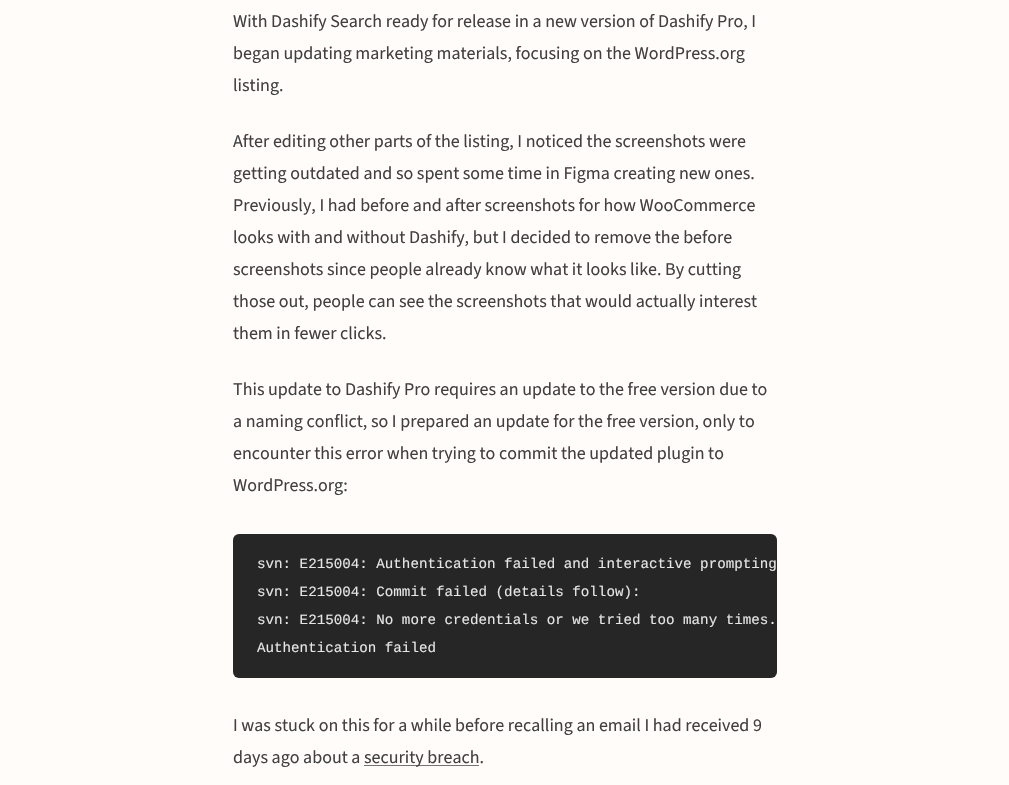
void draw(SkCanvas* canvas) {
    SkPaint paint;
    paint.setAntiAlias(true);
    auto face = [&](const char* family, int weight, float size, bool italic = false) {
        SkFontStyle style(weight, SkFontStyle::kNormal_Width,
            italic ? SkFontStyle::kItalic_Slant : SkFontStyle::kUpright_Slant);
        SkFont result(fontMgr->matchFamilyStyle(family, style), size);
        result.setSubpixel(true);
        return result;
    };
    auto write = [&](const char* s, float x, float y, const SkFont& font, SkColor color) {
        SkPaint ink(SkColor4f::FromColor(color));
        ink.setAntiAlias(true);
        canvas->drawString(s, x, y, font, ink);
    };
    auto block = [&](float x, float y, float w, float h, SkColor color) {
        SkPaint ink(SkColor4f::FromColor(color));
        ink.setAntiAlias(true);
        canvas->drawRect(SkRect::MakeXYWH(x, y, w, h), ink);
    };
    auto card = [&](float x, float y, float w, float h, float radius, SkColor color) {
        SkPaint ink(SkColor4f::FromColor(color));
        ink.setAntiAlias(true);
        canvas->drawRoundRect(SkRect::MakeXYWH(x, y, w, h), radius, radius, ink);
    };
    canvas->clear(SkColorSetRGB(255, 252, 249));
    auto kFont1 = face("Source Sans 3", 400, 18);
    write("With Dashify Search ready for release in a new version of Dashify Pro, I", 233, 27, kFont1, SkColorSetRGB(64, 64, 64));
    write("began updating marketing materials, focusing on the WordPress.org", 233, 59, kFont1, SkColorSetRGB(64, 64, 64));
    write("listing.", 233, 91, kFont1, SkColorSetRGB(64, 64, 64));
    write("After editing other parts of the listing, I noticed the screenshots were", 233, 147, kFont1, SkColorSetRGB(64, 64, 64));
    write("getting outdated and so spent some time in Figma creating new ones.", 233, 179, kFont1, SkColorSetRGB(64, 64, 64));
    write("Previously, I had before and after screenshots for how WooCommerce", 233, 211, kFont1, SkColorSetRGB(64, 64, 64));
    write("looks with and without Dashify, but I decided to remove the before", 233, 243, kFont1, SkColorSetRGB(64, 64, 64));
    write("screenshots since people already know what it looks like. By cutting", 233, 275, kFont1, SkColorSetRGB(64, 64, 64));
    write("those out, people can see the screenshots that would actually interest", 233, 307, kFont1, SkColorSetRGB(64, 64, 64));
    write("them in fewer clicks.", 233, 339, kFont1, SkColorSetRGB(64, 64, 64));
    write("This update to Dashify Pro requires an update to the free version due to", 233, 395, kFont1, SkColorSetRGB(64, 64, 64));
    write("a naming conflict, so I prepared an update for the free version, only to", 233, 427, kFont1, SkColorSetRGB(64, 64, 64));
    write("encounter this error when trying to commit the updated plugin to", 233, 459, kFont1, SkColorSetRGB(64, 64, 64));
    write("WordPress.org:", 233, 491, kFont1, SkColorSetRGB(64, 64, 64));
    card(233, 534, 544, 144, 6, SkColorSetRGB(38, 38, 38));
    auto kFont2 = face("Liberation Mono", 400, 14.2f);
    write("svn: E215004: Authentication failed and interactive prompting", 257, 568, kFont2, SkColorSetRGB(229, 229, 229));
    write("svn: E215004: Commit failed (details follow):", 257, 596, kFont2, SkColorSetRGB(229, 229, 229));
    write("svn: E215004: No more credentials or we tried too many times.", 257, 624, kFont2, SkColorSetRGB(229, 229, 229));
    write("Authentication failed", 257, 652, kFont2, SkColorSetRGB(229, 229, 229));
    write("I was stuck on this for a while before recalling an email I had received 9", 233, 731, kFont1, SkColorSetRGB(64, 64, 64));
    write("days ago about a", 233, 763, kFont1, SkColorSetRGB(64, 64, 64));
    block(364, 765, 115, 1, SkColorSetRGB(115, 115, 115));
    write("security breach.", 364, 763, kFont1, SkColorSetRGB(64, 64, 64));
}
